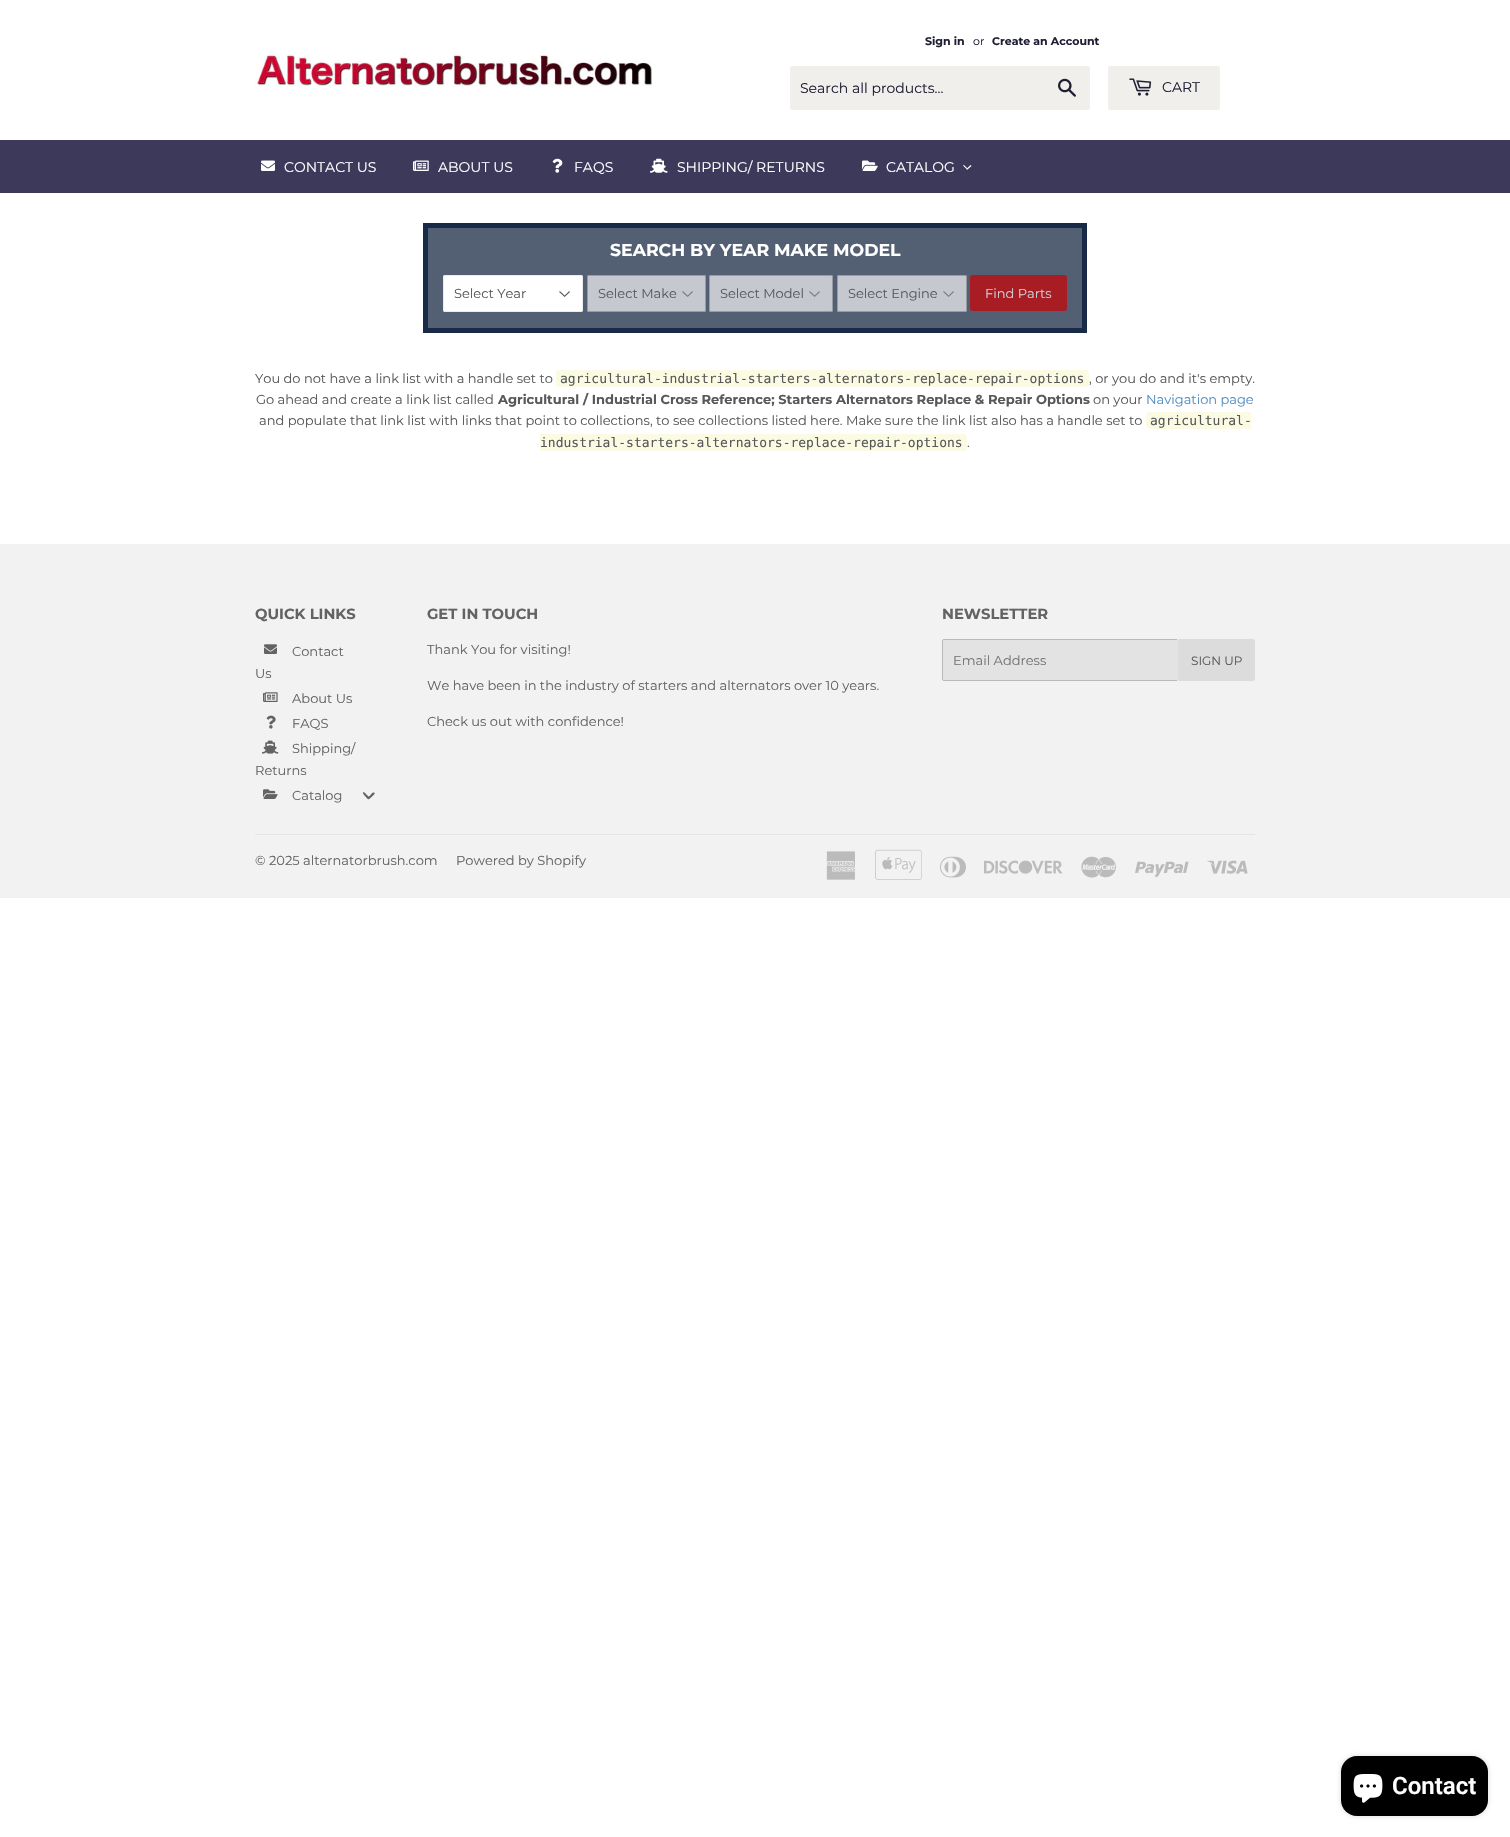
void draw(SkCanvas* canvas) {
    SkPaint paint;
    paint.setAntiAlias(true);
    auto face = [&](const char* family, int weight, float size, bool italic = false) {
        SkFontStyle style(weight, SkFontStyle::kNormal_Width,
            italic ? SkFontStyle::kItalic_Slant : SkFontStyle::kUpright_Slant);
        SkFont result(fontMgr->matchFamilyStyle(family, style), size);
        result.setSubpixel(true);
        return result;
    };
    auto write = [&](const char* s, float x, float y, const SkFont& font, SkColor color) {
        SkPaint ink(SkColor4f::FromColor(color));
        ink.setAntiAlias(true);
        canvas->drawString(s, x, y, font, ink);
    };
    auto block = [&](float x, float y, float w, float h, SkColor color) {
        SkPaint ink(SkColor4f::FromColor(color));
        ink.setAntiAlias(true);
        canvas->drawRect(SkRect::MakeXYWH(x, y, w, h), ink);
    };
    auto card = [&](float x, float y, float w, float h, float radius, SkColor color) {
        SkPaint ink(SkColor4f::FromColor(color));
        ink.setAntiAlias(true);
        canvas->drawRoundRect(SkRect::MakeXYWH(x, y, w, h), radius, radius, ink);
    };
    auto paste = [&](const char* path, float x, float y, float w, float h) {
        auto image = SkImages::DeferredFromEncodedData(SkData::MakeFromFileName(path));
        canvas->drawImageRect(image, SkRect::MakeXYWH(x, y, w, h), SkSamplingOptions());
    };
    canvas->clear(SK_ColorWHITE);
    paste("pic1.png", 255, 51, 397, 36);
    auto kFont1 = face("Montserrat", 700, 11);
    write("Sign in", 925, 45, kFont1, SkColorSetRGB(31, 31, 52));
    auto kFont2 = face("Montserrat", 400, 11);
    write("or", 973, 45, kFont2, SkColorSetRGB(31, 31, 52));
    write("Create an Account", 992, 45, kFont1, SkColorSetRGB(31, 31, 52));
    card(790, 66, 300, 44, 2, SkColorSetRGB(240, 239, 236));
    auto kFont3 = face("Montserrat", 400, 14);
    write("Search all products...", 800, 93, kFont3, SkColorSetRGB(31, 31, 52));
    paste("pic2.png", 1058, 78, 18, 19);
    card(1108, 66, 112, 44, 2, SkColorSetRGB(240, 239, 236));
    paste("pic3.png", 1129, 78, 23, 18);
    write("CART", 1162, 92, kFont3, SkColorSetRGB(31, 31, 52));
    block(0, 140, 1510, 53, SkColorSetRGB(60, 57, 90));
    paste("pic4.png", 261, 160, 14, 11);
    write("CONTACT US", 284, 172, kFont3, SK_ColorWHITE);
    paste("pic5.png", 413, 160, 16, 11);
    write("ABOUT US", 438, 172, kFont3, SK_ColorWHITE);
    paste("pic6.png", 552, 158, 11, 15);
    write("FAQS", 574, 172, kFont3, SK_ColorWHITE);
    paste("pic7.png", 650, 158, 18, 15);
    write("SHIPPING/ RETURNS", 677, 172, kFont3, SK_ColorWHITE);
    paste("pic8.png", 862, 160, 16, 11);
    write("CATALOG", 886, 172, kFont3, SK_ColorWHITE);
    paint.setColor(SK_ColorWHITE);
    canvas->drawPath(SkPathBuilder().moveTo(970.5f, 165).lineTo(971.5f, 166).lineTo(967.5f, 169.5f).lineTo(966.5f, 169).close().detach(), paint);
    canvas->drawPath(SkPathBuilder().moveTo(964, 165).lineTo(968, 169).lineTo(967, 169.5f).lineTo(963, 165.5f).close().detach(), paint);
    paint.setColor(SkColorSetRGB(83, 95, 115));
    canvas->drawRect(SkRect::MakeXYWH(425.5f, 225.5f, 659, 105), paint);
    paint.setStyle(SkPaint::kStroke_Style);
    paint.setStrokeWidth(5);
    paint.setColor(SkColorSetRGB(24, 42, 71));
    canvas->drawRect(SkRect::MakeXYWH(425.5f, 225.5f, 659, 105), paint);
    auto kFont4 = face("Montserrat", 700, 17.3f);
    write("SEARCH BY YEAR MAKE MODEL", 610, 256, kFont4, SK_ColorWHITE);
    card(443, 275, 140, 37, 2, SK_ColorWHITE);
    paste("pic9.png", 559, 291, 11, 6);
    paint.setStrokeWidth(1);
    paint.setColor(SkColorSetRGB(236, 236, 236));
    canvas->drawRoundRect(SkRect::MakeXYWH(443.5f, 275.5f, 139, 36), 1.5f, 1.5f, paint);
    auto kFont5 = face("Montserrat", 400, 13);
    write("Select Year", 454, 298, kFont5, SkColorSetRGB(88, 88, 88));
    card(587, 275, 119, 37, 2, SkColorSetRGB(197, 201, 207));
    paste("pic10.png", 682, 291, 11, 6);
    paint.setColor(SkColorSetRGB(152, 156, 162));
    canvas->drawRoundRect(SkRect::MakeXYWH(587.5f, 275.5f, 118, 36), 1.5f, 1.5f, paint);
    write("Select Make", 598, 298, kFont5, SkColorSetRGB(87, 90, 96));
    card(709, 275, 124, 37, 2, SkColorSetRGB(197, 201, 207));
    paste("pic10.png", 809, 291, 11, 6);
    canvas->drawRoundRect(SkRect::MakeXYWH(709.5f, 275.5f, 123, 36), 1.5f, 1.5f, paint);
    write("Select Model", 720, 298, kFont5, SkColorSetRGB(87, 90, 96));
    card(837, 275, 130, 37, 2, SkColorSetRGB(197, 201, 207));
    paste("pic10.png", 943, 291, 11, 6);
    canvas->drawRoundRect(SkRect::MakeXYWH(837.5f, 275.5f, 129, 36), 1.5f, 1.5f, paint);
    write("Select Engine", 848, 298, kFont5, SkColorSetRGB(87, 90, 96));
    card(970, 275, 97, 36, 3, SkColorSetRGB(168, 29, 35));
    write("Find Parts", 985, 298, kFont5, SkColorSetRGB(203, 207, 213));
    write("You do not have a link list with a handle set to", 255, 383, kFont5, SkColorSetRGB(88, 88, 88));
    card(556, 370, 533, 17, 3, SkColorSetRGB(251, 251, 228));
    auto kFont6 = face("DejaVu Sans Mono", 400, 13);
    write("agricultural-industrial-starters-alternators-replace-repair-options", 560, 383, kFont6, SkColorSetRGB(88, 88, 88));
    write(", or you do and it's empty.", 1089, 383, kFont5, SkColorSetRGB(88, 88, 88));
    write("Go ahead and create a link list called", 256, 404, kFont5, SkColorSetRGB(88, 88, 88));
    auto kFont7 = face("Montserrat", 700, 13);
    write("Agricultural / Industrial Cross Reference; Starters Alternators Replace & Repair Options", 498, 404, kFont7, SkColorSetRGB(88, 88, 88));
    write("on your", 1093, 404, kFont5, SkColorSetRGB(88, 88, 88));
    write("Navigation page", 1146, 404, kFont5, SkColorSetRGB(82, 142, 193));
    write("and populate that link list with links that point to collections, to see collections listed here. Make sure the link list also has a handle set to", 259, 425, kFont5, SkColorSetRGB(88, 88, 88));
    paint.setStyle(SkPaint::kFill_Style);
    paint.setColor(SkColorSetRGB(251, 251, 228));
    canvas->drawPath(SkPathBuilder().moveTo(1149, 412).lineTo(1251, 412).lineTo(1251, 429).lineTo(1149, 429).cubicTo(1147.5f, 429, 1146, 427.5f, 1146, 426).lineTo(1146, 415).cubicTo(1146, 413.5f, 1147.5f, 412, 1149, 412).close().detach(), paint);
    write("agricultural-", 1150, 425, kFont6, SkColorSetRGB(88, 88, 88));
    canvas->drawPath(SkPathBuilder().moveTo(540, 434).lineTo(964, 434).cubicTo(965.5f, 434, 967, 435.5f, 967, 437).lineTo(967, 448).cubicTo(967, 449.5f, 965.5f, 451, 964, 451).lineTo(540, 451).close().detach(), paint);
    write("industrial-starters-alternators-replace-repair-options", 540, 447, kFont6, SkColorSetRGB(88, 88, 88));
    write(".", 967, 447, kFont5, SkColorSetRGB(88, 88, 88));
    block(0, 544, 1510, 354, SkColorSetRGB(242, 242, 242));
    auto kFont8 = face("Montserrat", 700, 14.75f);
    write("QUICK LINKS", 255, 619, kFont8, SkColorSetRGB(99, 99, 99));
    paste("pic11.png", 264, 644, 13, 10);
    write("Contact", 292, 656, kFont5, SkColorSetRGB(99, 99, 99));
    write("Us", 255, 678, kFont5, SkColorSetRGB(99, 99, 99));
    paste("pic12.png", 263, 692, 15, 10);
    write("About Us", 292, 703, kFont5, SkColorSetRGB(99, 99, 99));
    paste("pic13.png", 266, 715, 10, 14);
    write("FAQS", 292, 728, kFont5, SkColorSetRGB(99, 99, 99));
    paste("pic14.png", 262, 740, 17, 14);
    write("Shipping/", 292, 753, kFont5, SkColorSetRGB(99, 99, 99));
    write("Returns", 255, 775, kFont5, SkColorSetRGB(99, 99, 99));
    paste("pic15.png", 263, 789, 15, 10);
    write("Catalog", 292, 800, kFont5, SkColorSetRGB(99, 99, 99));
    paint.setColor(SkColorSetRGB(99, 99, 99));
    canvas->drawPath(SkPathBuilder().moveTo(364.5f, 792.5f).lineTo(367, 795).cubicTo(367.5f, 796, 370, 797, 369.5f, 798.5f).cubicTo(369, 801, 365, 796, 364.5f, 795.5f).lineTo(363, 793.5f).cubicTo(362.5f, 792.5f, 363.5f, 792, 364.5f, 792.5f).close().detach(), paint);
    canvas->drawPath(SkPathBuilder().moveTo(368, 797.5f).lineTo(370.5f, 795).cubicTo(371, 794.5f, 372.5f, 792, 374, 792.5f).cubicTo(376.5f, 793, 371.5f, 797, 371, 797.5f).lineTo(369, 799).cubicTo(368, 799.5f, 367, 798.5f, 368, 797.5f).close().detach(), paint);
    write("GET IN TOUCH", 427, 619, kFont8, SkColorSetRGB(99, 99, 99));
    write("Thank You for visiting!", 427, 654, kFont5, SkColorSetRGB(99, 99, 99));
    write("We have been in the industry of starters and alternators over 10 years.", 427, 690, kFont5, SkColorSetRGB(99, 99, 99));
    write("Check us out with confidence!", 427, 726, kFont5, SkColorSetRGB(99, 99, 99));
    write("NEWSLETTER", 942, 619, kFont8, SkColorSetRGB(99, 99, 99));
    card(942, 639, 236, 42, 2, SkColorSetRGB(227, 227, 227));
    block(943, 639, 234, 1, SkColorSetRGB(185, 185, 185));
    block(943, 680, 234, 1, SkColorSetRGB(185, 185, 185));
    block(942, 640, 1, 40, SkColorSetRGB(185, 185, 185));
    write("Email Address", 953, 665, kFont5, SkColorSetRGB(117, 117, 117));
    paint.setColor(SkColorSetRGB(220, 220, 220));
    canvas->drawPath(SkPathBuilder().moveTo(1178, 639).lineTo(1253, 639).cubicTo(1254, 639, 1255, 640, 1255, 641).lineTo(1255, 679).cubicTo(1255, 680, 1254, 681, 1253, 681).lineTo(1178, 681).close().detach(), paint);
    auto kFont9 = face("Montserrat", 400, 12);
    write("SIGN UP", 1191, 665, kFont9, SkColorSetRGB(88, 88, 88));
    block(255, 834, 1000, 1, SkColorSetRGB(229, 229, 229));
    write("© 2025 alternatorbrush.com", 255, 865, kFont5, SkColorSetRGB(99, 99, 99));
    write("Powered by Shopify", 456, 865, kFont5, SkColorSetRGB(99, 99, 99));
    paste("pic16.png", 826, 851, 30, 29);
    paste("pic17.png", 875, 849, 47, 31);
    paste("pic18.png", 940, 856, 26, 22);
    paste("pic19.png", 984, 860, 79, 14);
    paste("pic20.png", 1081, 856, 35, 22);
    paste("pic21.png", 1135, 861, 54, 16);
    paste("pic22.png", 1207, 860, 41, 14);
    paint.setColor(SkColorSetARGB(38, 0, 0, 0));
    paint.setMaskFilter(SkMaskFilter::MakeBlur(kNormal_SkBlurStyle, 2.5f));
    canvas->drawRoundRect(SkRect::MakeXYWH(1341, 1756, 147, 60), 16, 16, paint);
    paint.setMaskFilter(nullptr);
    card(1341, 1756, 147, 60, 16, SK_ColorBLACK);
    paste("pic23.png", 1353, 1774, 30, 29);
    auto kFont10 = face("Roboto", 600, 24);
    write("Contact", 1392, 1794, kFont10, SK_ColorWHITE);
}
